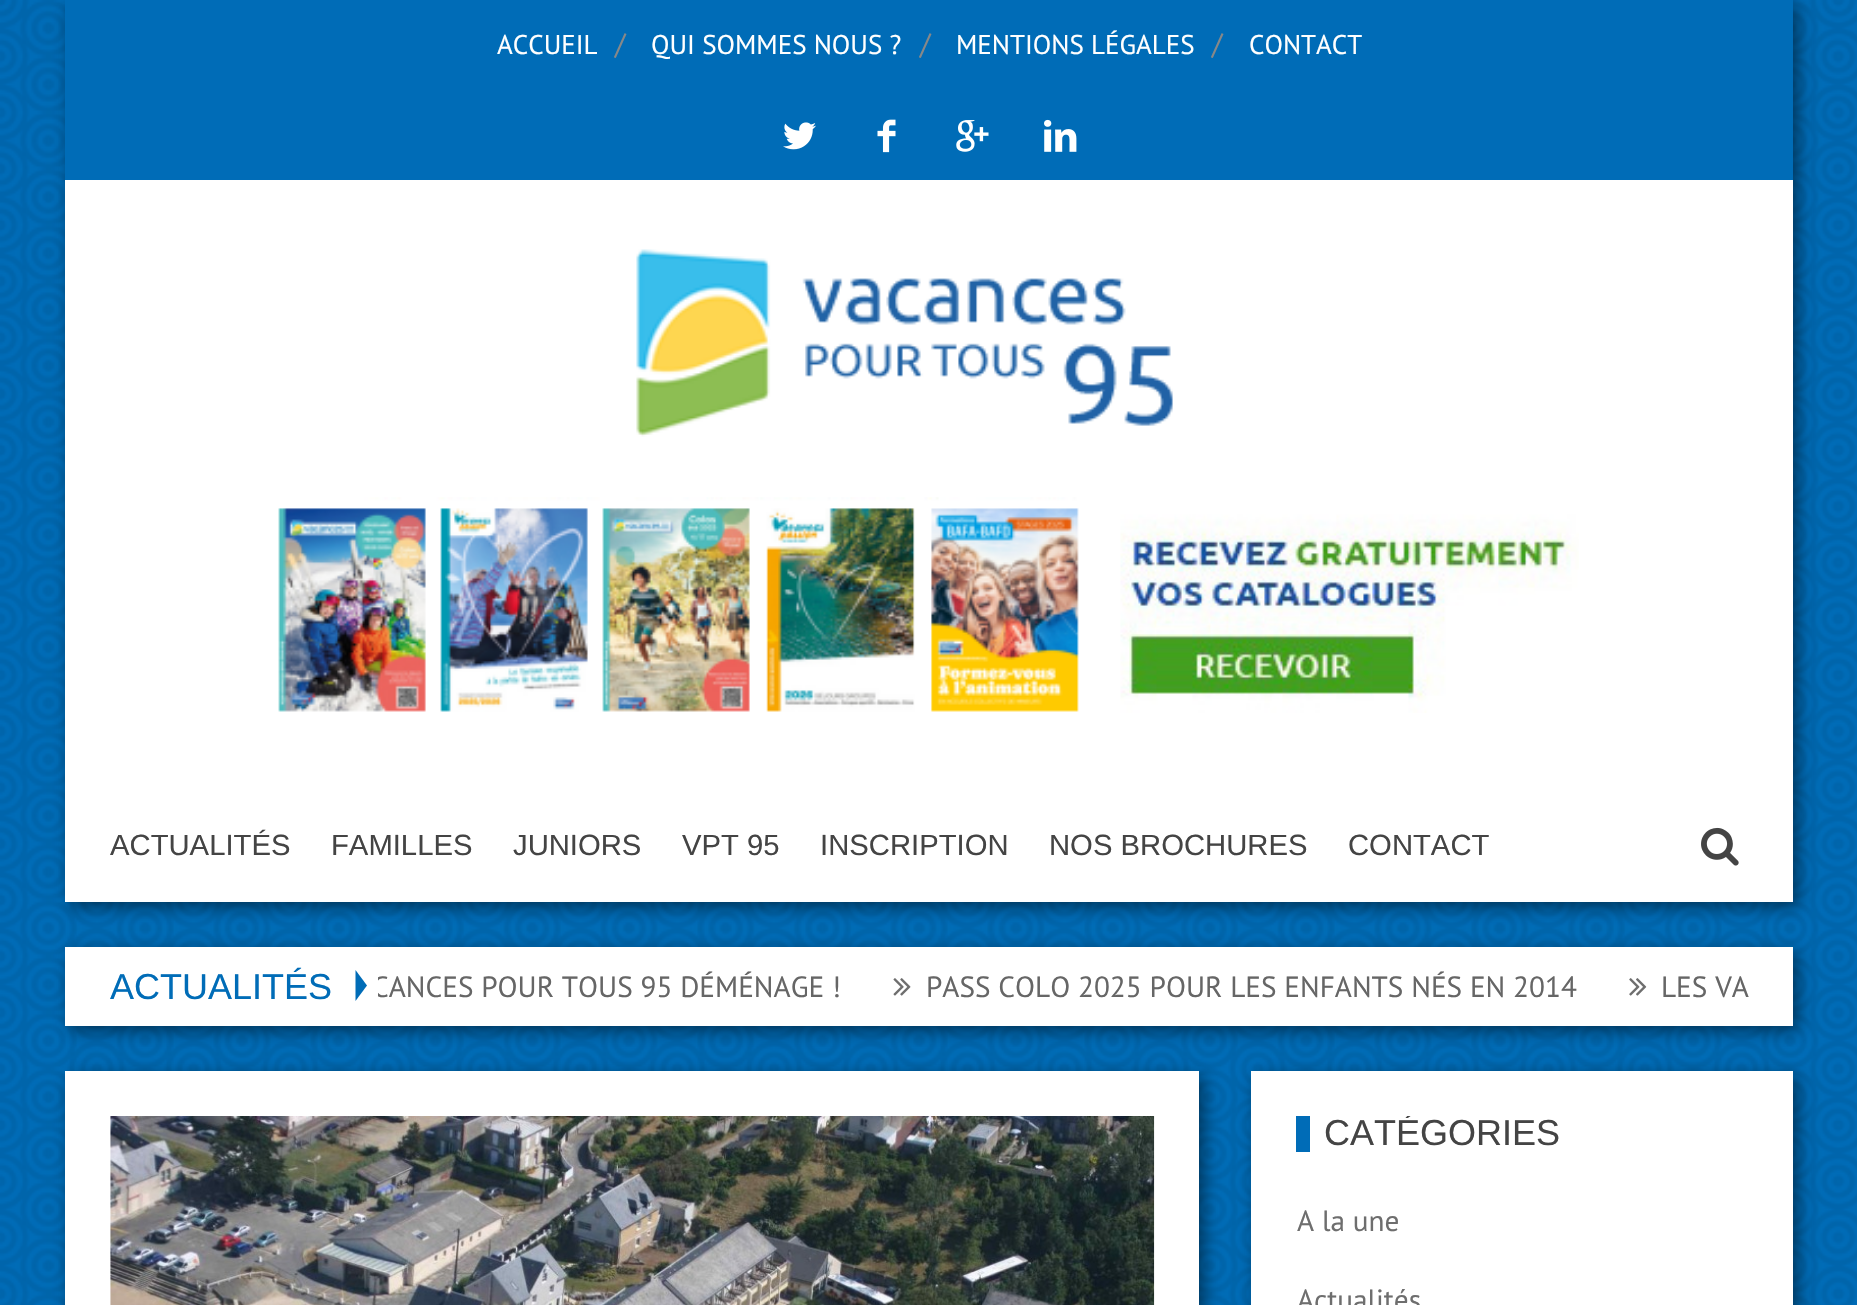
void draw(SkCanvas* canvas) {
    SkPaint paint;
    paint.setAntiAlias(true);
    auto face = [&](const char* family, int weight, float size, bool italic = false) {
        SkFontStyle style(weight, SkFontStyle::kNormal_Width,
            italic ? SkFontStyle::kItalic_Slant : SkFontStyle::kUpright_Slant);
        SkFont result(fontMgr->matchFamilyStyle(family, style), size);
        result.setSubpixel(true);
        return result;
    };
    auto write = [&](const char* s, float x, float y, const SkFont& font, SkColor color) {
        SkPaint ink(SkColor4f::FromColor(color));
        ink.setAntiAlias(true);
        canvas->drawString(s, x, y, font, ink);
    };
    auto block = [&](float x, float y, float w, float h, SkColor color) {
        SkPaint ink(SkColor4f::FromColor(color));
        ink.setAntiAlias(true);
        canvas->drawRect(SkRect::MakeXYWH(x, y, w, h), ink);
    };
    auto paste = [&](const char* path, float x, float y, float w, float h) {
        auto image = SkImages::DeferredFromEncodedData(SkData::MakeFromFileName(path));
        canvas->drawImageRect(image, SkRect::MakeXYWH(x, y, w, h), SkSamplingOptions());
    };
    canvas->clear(SK_ColorWHITE);
    paste("pic1.png", 0, 0, 1857, 1305);
    paint.setColor(SkColorSetARGB(128, 0, 0, 0));
    paint.setMaskFilter(SkMaskFilter::MakeBlur(kNormal_SkBlurStyle, 8));
    canvas->drawRect(SkRect::MakeXYWH(70, 5, 1728, 902), paint);
    paint.setMaskFilter(nullptr);
    block(65, 180, 1728, 722, SK_ColorWHITE);
    block(65, 0, 1728, 180, SkColorSetRGB(0, 108, 183));
    auto kFont1 = face("PT Sans", 400, 27);
    write("ACCUEIL", 497, 54, kFont1, SK_ColorWHITE);
    auto kFont2 = face("PT Sans", 400, 29.25f);
    write("/", 615, 54, kFont2, SkColorSetRGB(136, 136, 136));
    write("QUI SOMMES NOUS ?", 651, 54, kFont1, SK_ColorWHITE);
    write("/", 920, 54, kFont2, SkColorSetRGB(136, 136, 136));
    write("MENTIONS LÉGALES", 956, 54, kFont1, SK_ColorWHITE);
    write("/", 1212, 54, kFont2, SkColorSetRGB(136, 136, 136));
    write("CONTACT", 1249, 54, kFont1, SK_ColorWHITE);
    paste("pic2.png", 783, 122, 33, 28);
    paste("pic3.png", 877, 119, 19, 34);
    paste("pic4.png", 956, 120, 33, 32);
    paste("pic5.png", 1044, 119, 33, 33);
    paste("pic6.png", 636, 249, 537, 188);
    paste("pic7.png", 278, 497, 1301, 216);
    auto kFont3 = face("Liberation Sans", 400, 29.25f);
    write("ACTUALITÉS", 110, 855, kFont3, SkColorSetRGB(68, 68, 68));
    write("FAMILLES", 331, 855, kFont3, SkColorSetRGB(68, 68, 68));
    write("JUNIORS", 513, 855, kFont3, SkColorSetRGB(68, 68, 68));
    write("VPT 95", 682, 855, kFont3, SkColorSetRGB(68, 68, 68));
    write("INSCRIPTION", 820, 855, kFont3, SkColorSetRGB(68, 68, 68));
    write("NOS BROCHURES", 1049, 855, kFont3, SkColorSetRGB(68, 68, 68));
    write("CONTACT", 1348, 855, kFont3, SkColorSetRGB(68, 68, 68));
    paste("pic8.png", 1701, 827, 38, 39);
    paint.setMaskFilter(SkMaskFilter::MakeBlur(kNormal_SkBlurStyle, 8));
    canvas->drawRect(SkRect::MakeXYWH(70, 952, 1728, 79), paint);
    paint.setMaskFilter(nullptr);
    block(65, 947, 1728, 79, SK_ColorWHITE);
    auto kFont4 = face("Liberation Sans", 400, 36);
    write("ACTUALITÉS", 110, 999, kFont4, SkColorSetRGB(0, 108, 183));
    paint.setColor(SkColorSetRGB(0, 108, 183));
    canvas->drawPath(SkPathBuilder().moveTo(355.5f, 1001).lineTo(355.5f, 970).lineTo(367, 985.5f).close().detach(), paint);
    canvas->save();
    canvas->clipRect(SkRect::MakeXYWH(378, 947, 1370, 79));
    write("CANCES POUR TOUS 95 DÉMÉNAGE !", 372, 997, kFont2, SkColorSetRGB(102, 102, 102));
    canvas->restore();
    paste("pic9.png", 893, 978, 18, 18);
    write("PASS COLO 2025 POUR LES ENFANTS NÉS EN 2014", 926, 997, kFont2, SkColorSetRGB(102, 102, 102));
    paste("pic10.png", 1629, 978, 18, 18);
    write("LES VA", 1661, 997, kFont2, SkColorSetRGB(102, 102, 102));
    paint.setColor(SkColorSetARGB(128, 0, 0, 0));
    paint.setMaskFilter(SkMaskFilter::MakeBlur(kNormal_SkBlurStyle, 8));
    canvas->drawRect(SkRect::MakeXYWH(70, 1076, 1134, 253), paint);
    paint.setMaskFilter(nullptr);
    block(65, 1071, 1134, 234, SK_ColorWHITE);
    paste("pic11.png", 110, 1116, 1045, 189);
    paint.setMaskFilter(SkMaskFilter::MakeBlur(kNormal_SkBlurStyle, 8));
    canvas->drawRect(SkRect::MakeXYWH(1256, 1076, 542, 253), paint);
    paint.setMaskFilter(nullptr);
    block(1251, 1071, 542, 234, SK_ColorWHITE);
    block(1296, 1116, 14, 36, SkColorSetRGB(0, 108, 183));
    canvas->save();
    canvas->clipRect(SkRect::MakeXYWH(1296, 1116, 452, 36));
    write("CATÉGORIES", 1324, 1145, kFont4, SkColorSetRGB(68, 68, 68));
    canvas->restore();
    write("A la une", 1297, 1231, kFont2, SkColorSetRGB(110, 110, 110));
    write("Actualités", 1297, 1310, kFont2, SkColorSetRGB(110, 110, 110));
}
